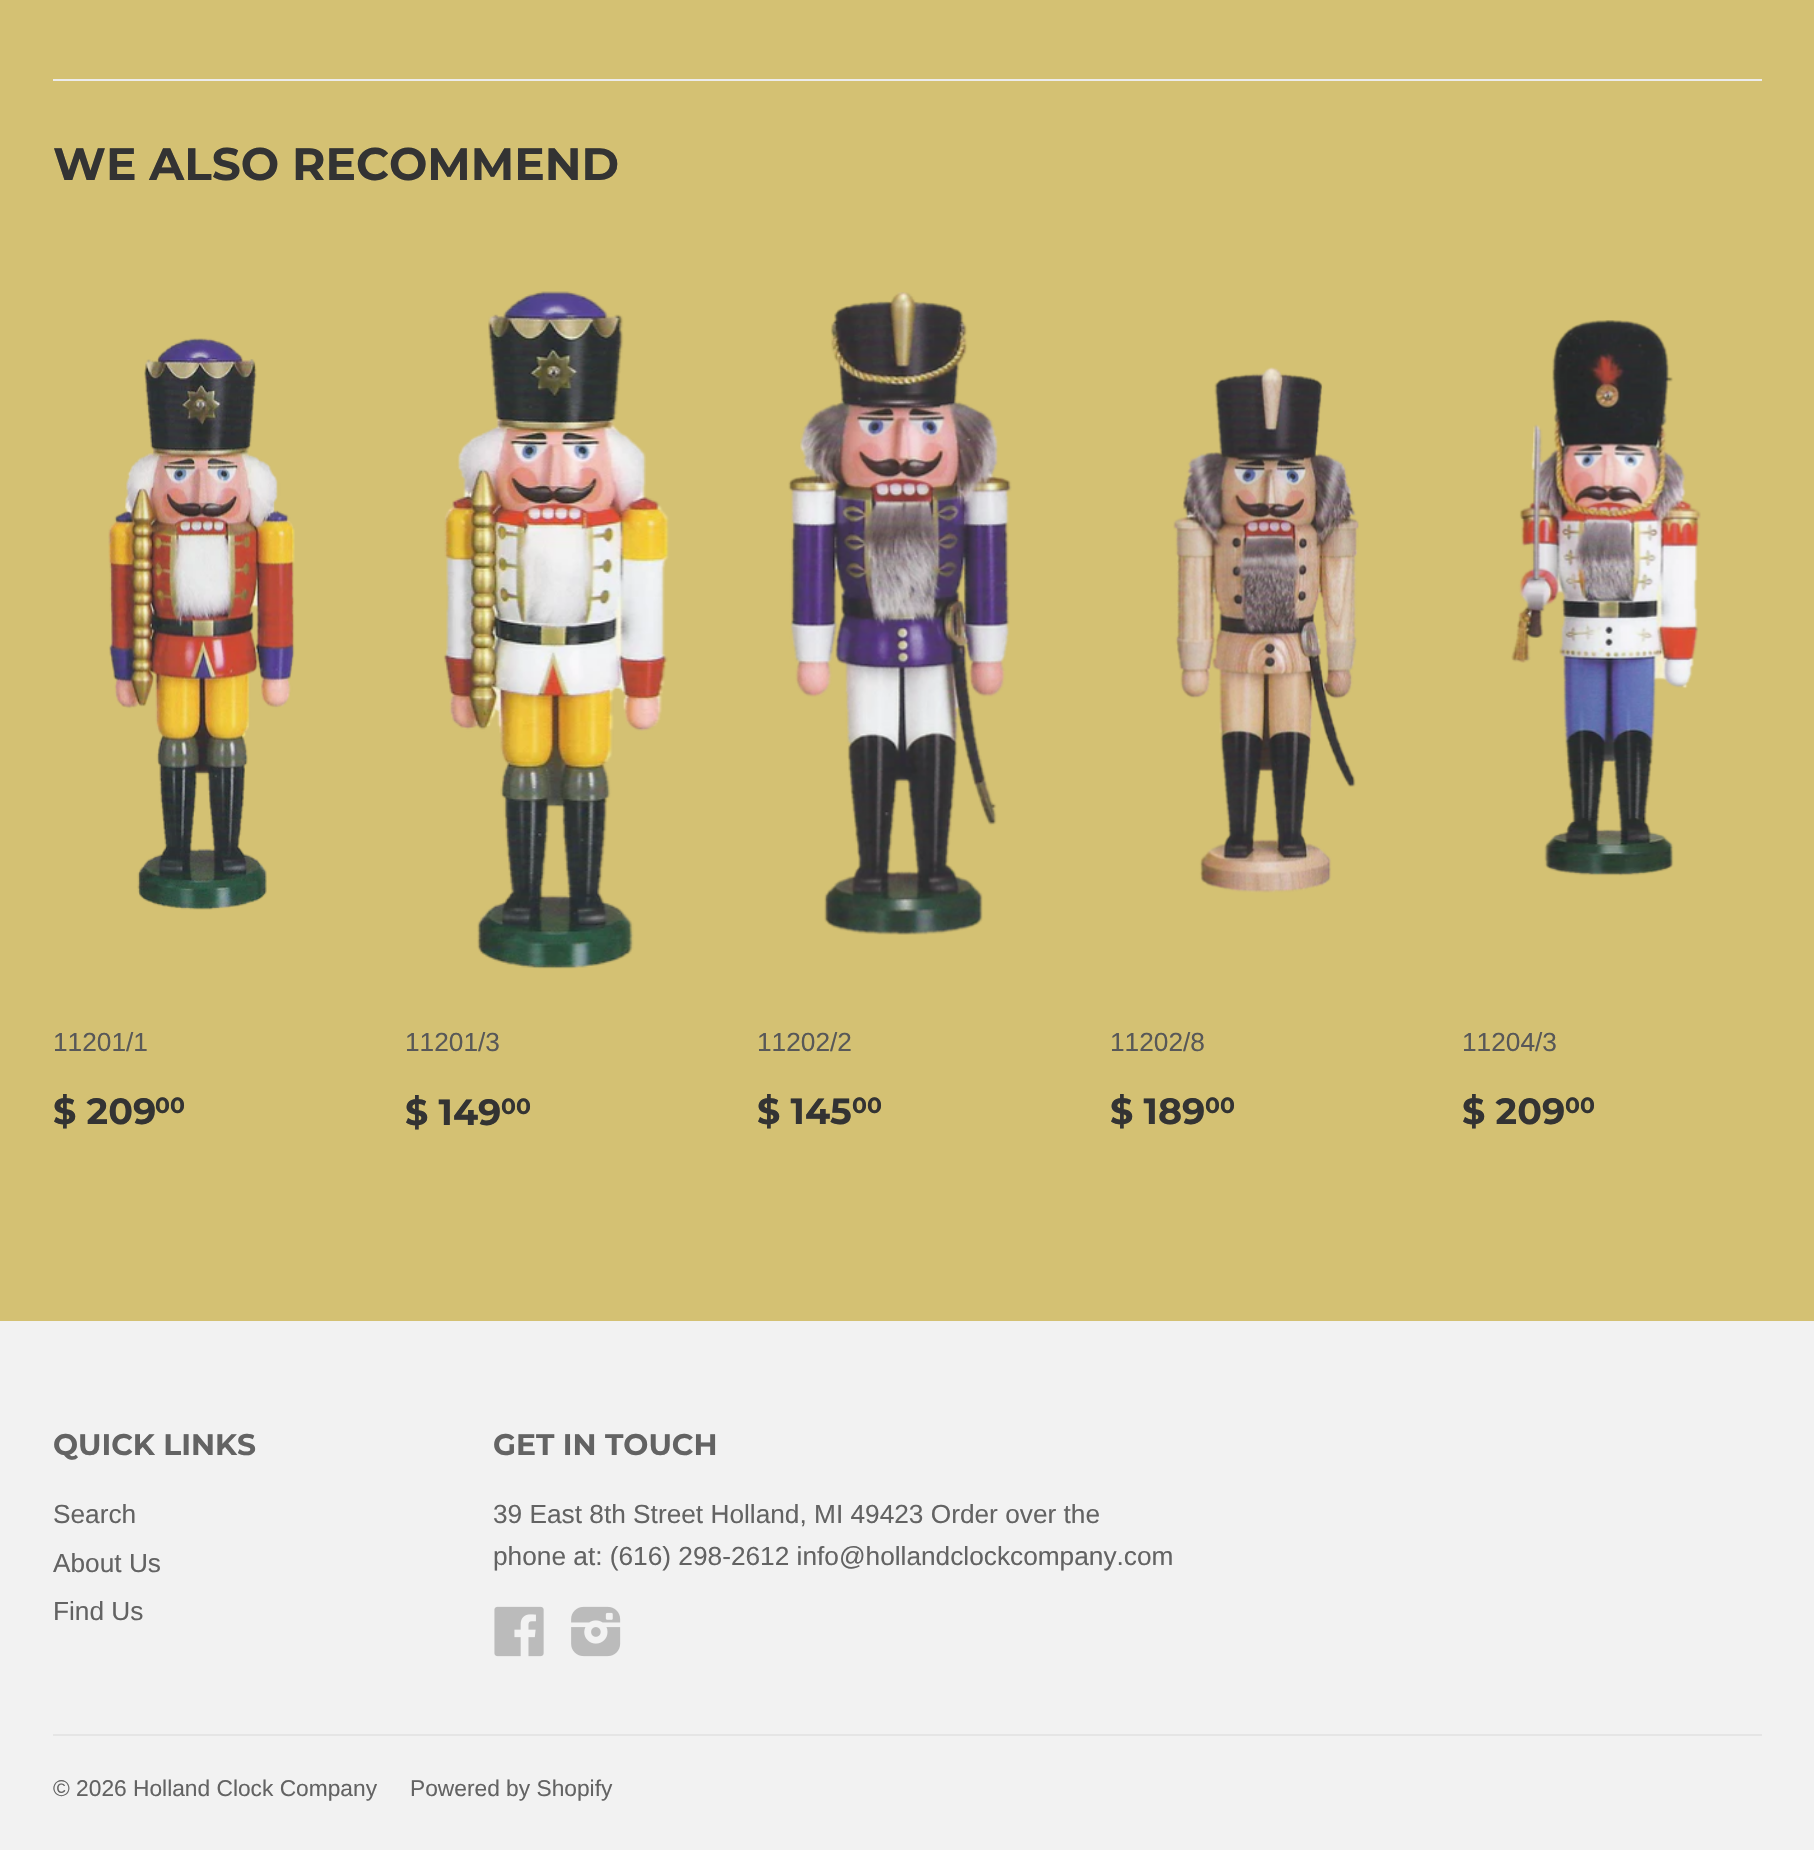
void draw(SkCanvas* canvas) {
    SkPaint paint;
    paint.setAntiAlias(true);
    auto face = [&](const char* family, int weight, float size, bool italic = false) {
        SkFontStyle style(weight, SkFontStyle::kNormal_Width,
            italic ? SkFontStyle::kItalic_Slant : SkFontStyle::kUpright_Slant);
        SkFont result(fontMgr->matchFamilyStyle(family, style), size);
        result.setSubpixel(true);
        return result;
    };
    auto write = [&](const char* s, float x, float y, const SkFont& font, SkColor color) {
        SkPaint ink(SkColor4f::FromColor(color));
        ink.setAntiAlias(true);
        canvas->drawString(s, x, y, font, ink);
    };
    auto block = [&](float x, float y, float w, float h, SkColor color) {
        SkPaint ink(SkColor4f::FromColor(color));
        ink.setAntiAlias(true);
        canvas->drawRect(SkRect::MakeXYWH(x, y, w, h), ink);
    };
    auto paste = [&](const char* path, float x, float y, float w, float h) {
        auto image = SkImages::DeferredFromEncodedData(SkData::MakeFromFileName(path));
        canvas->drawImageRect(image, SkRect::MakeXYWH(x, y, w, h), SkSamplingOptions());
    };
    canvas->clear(SkColorSetRGB(212, 193, 115));
    block(53, 79, 1709, 2, SkColorSetRGB(236, 236, 236));
    auto kFont1 = face("Montserrat", 100, 45.5f);
    write("WE ALSO RECOMMEND", 53, 180, kFont1, SkColorSetRGB(51, 51, 51));
    paste("pic1.png", 108, 338, 187, 572);
    auto kFont2 = face("Liberation Sans", 400, 26.25f);
    write("11201/1", 53, 1051, kFont2, SkColorSetRGB(88, 88, 88));
    auto kFont3 = face("Montserrat", 100, 36.5f);
    write("$ 209", 53, 1124, kFont3, SkColorSetRGB(51, 51, 51));
    auto kFont4 = face("Montserrat", 100, 22);
    write("00", 155, 1113, kFont4, SkColorSetRGB(51, 51, 51));
    paste("pic2.png", 443, 291, 226, 678);
    write("11201/3", 405, 1051, kFont2, SkColorSetRGB(88, 88, 88));
    write("$ 149", 405, 1125, kFont3, SkColorSetRGB(51, 51, 51));
    write("00", 501, 1114, kFont4, SkColorSetRGB(51, 51, 51));
    paste("pic3.png", 788, 292, 224, 643);
    write("11202/2", 757, 1051, kFont2, SkColorSetRGB(88, 88, 88));
    write("$ 145", 757, 1124, kFont3, SkColorSetRGB(51, 51, 51));
    write("00", 852, 1113, kFont4, SkColorSetRGB(51, 51, 51));
    paste("pic4.png", 1173, 367, 186, 526);
    write("11202/8", 1110, 1051, kFont2, SkColorSetRGB(88, 88, 88));
    write("$ 189", 1110, 1124, kFont3, SkColorSetRGB(51, 51, 51));
    write("00", 1205, 1113, kFont4, SkColorSetRGB(51, 51, 51));
    paste("pic5.png", 1511, 320, 190, 556);
    write("11204/3", 1462, 1051, kFont2, SkColorSetRGB(88, 88, 88));
    write("$ 209", 1462, 1124, kFont3, SkColorSetRGB(51, 51, 51));
    write("00", 1565, 1113, kFont4, SkColorSetRGB(51, 51, 51));
    block(0, 1321, 1814, 529, SkColorSetRGB(242, 242, 242));
    auto kFont5 = face("Montserrat", 100, 29.75f);
    write("QUICK LINKS", 53, 1455, kFont5, SkColorSetRGB(99, 99, 99));
    write("Search", 53, 1523, kFont2, SkColorSetRGB(99, 99, 99));
    write("About Us", 53, 1572, kFont2, SkColorSetRGB(99, 99, 99));
    write("Find Us", 53, 1620, kFont2, SkColorSetRGB(99, 99, 99));
    write("GET IN TOUCH", 493, 1455, kFont5, SkColorSetRGB(99, 99, 99));
    write("39 East 8th Street Holland, MI 49423 Order over the", 493, 1523, kFont2, SkColorSetRGB(99, 99, 99));
    write("phone at: (616) 298-2612 info@hollandclockcompany.com", 493, 1565, kFont2, SkColorSetRGB(99, 99, 99));
    paste("pic6.png", 494, 1606, 50, 51);
    paste("pic7.png", 571, 1606, 50, 51);
    block(53, 1734, 1709, 2, SkColorSetRGB(229, 229, 229));
    auto kFont6 = face("Liberation Sans", 400, 22.75f);
    write("© 2026 Holland Clock Company", 53, 1796, kFont6, SkColorSetRGB(99, 99, 99));
    write("Powered by Shopify", 410, 1796, kFont6, SkColorSetRGB(99, 99, 99));
}
